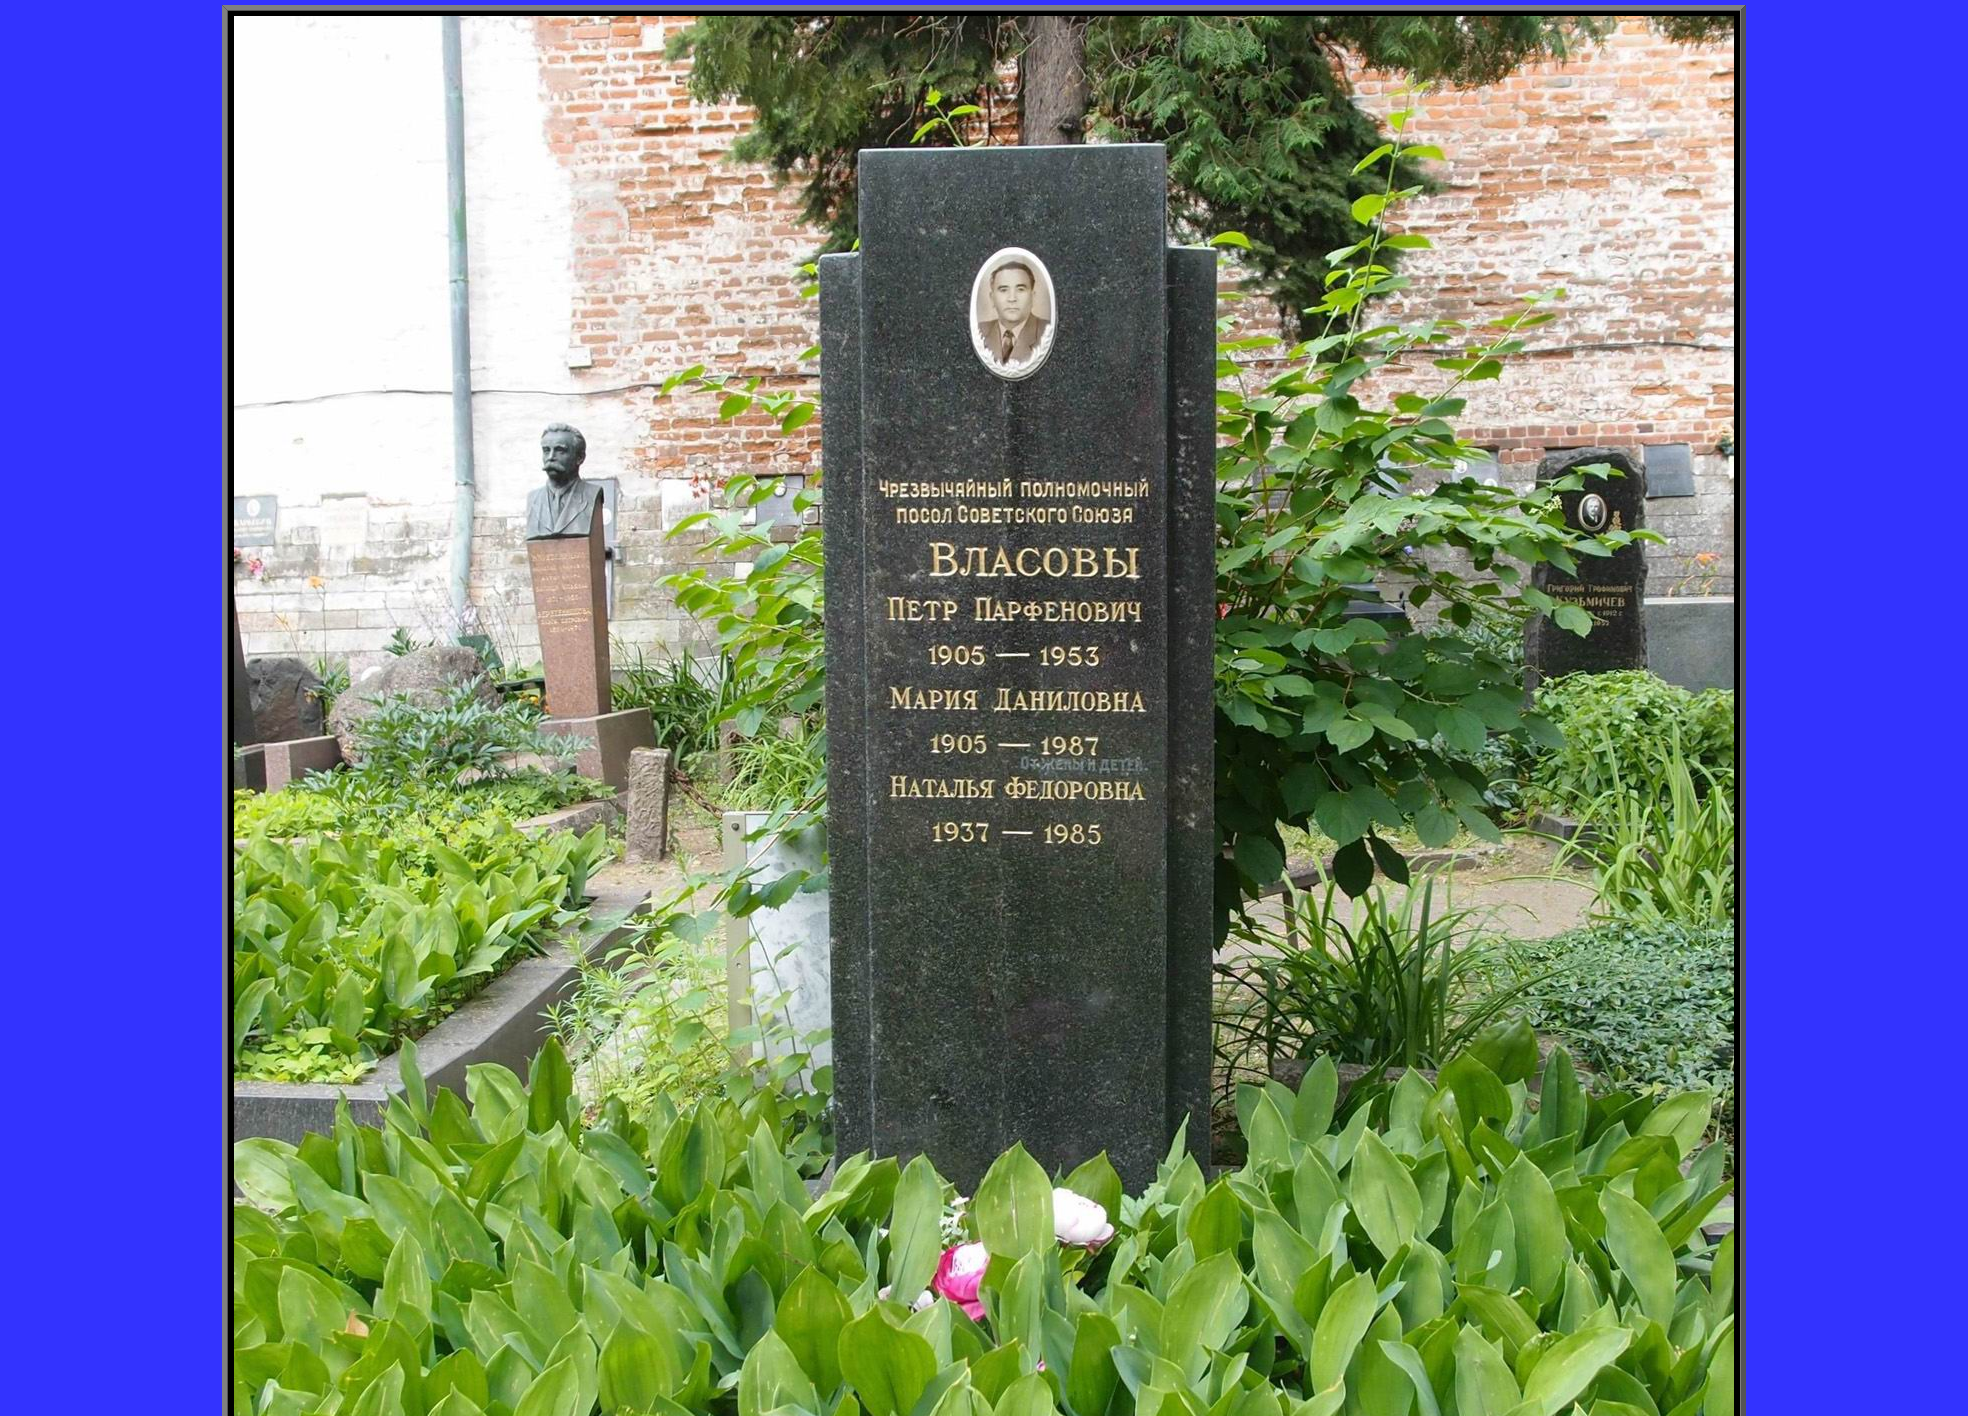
void draw(SkCanvas* canvas) {
    SkPaint paint;
    paint.setAntiAlias(true);
    auto block = [&](float x, float y, float w, float h, SkColor color) {
        SkPaint ink(SkColor4f::FromColor(color));
        ink.setAntiAlias(true);
        canvas->drawRect(SkRect::MakeXYWH(x, y, w, h), ink);
    };
    auto paste = [&](const char* path, float x, float y, float w, float h) {
        auto image = SkImages::DeferredFromEncodedData(SkData::MakeFromFileName(path));
        canvas->drawImageRect(image, SkRect::MakeXYWH(x, y, w, h), SkSamplingOptions());
    };
    canvas->clear(SkColorSetRGB(51, 51, 255));
    block(222, 5, 1524, 1411, SK_ColorBLACK);
    paint.setColor(SkColorSetRGB(128, 128, 128));
    canvas->drawPath(SkPathBuilder().moveTo(222, 5).lineTo(1746, 5).lineTo(1741, 10).lineTo(227, 10).close().detach(), paint);
    paint.setColor(SkColorSetRGB(85, 85, 85));
    canvas->drawPath(SkPathBuilder().moveTo(1746, 5).lineTo(1746, 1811).lineTo(1741, 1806).lineTo(1741, 10).close().detach(), paint);
    paint.setColor(SkColorSetRGB(128, 128, 128));
    canvas->drawPath(SkPathBuilder().moveTo(222, 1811).lineTo(222, 5).lineTo(227, 10).lineTo(227, 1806).close().detach(), paint);
    block(227, 10, 1514, 1, SkColorSetRGB(85, 85, 85));
    block(1740, 10, 1, 1406, SkColorSetRGB(128, 128, 128));
    block(227, 10, 1, 1406, SkColorSetRGB(85, 85, 85));
    paste("pic1.png", 234, 16, 1500, 1400);
}
